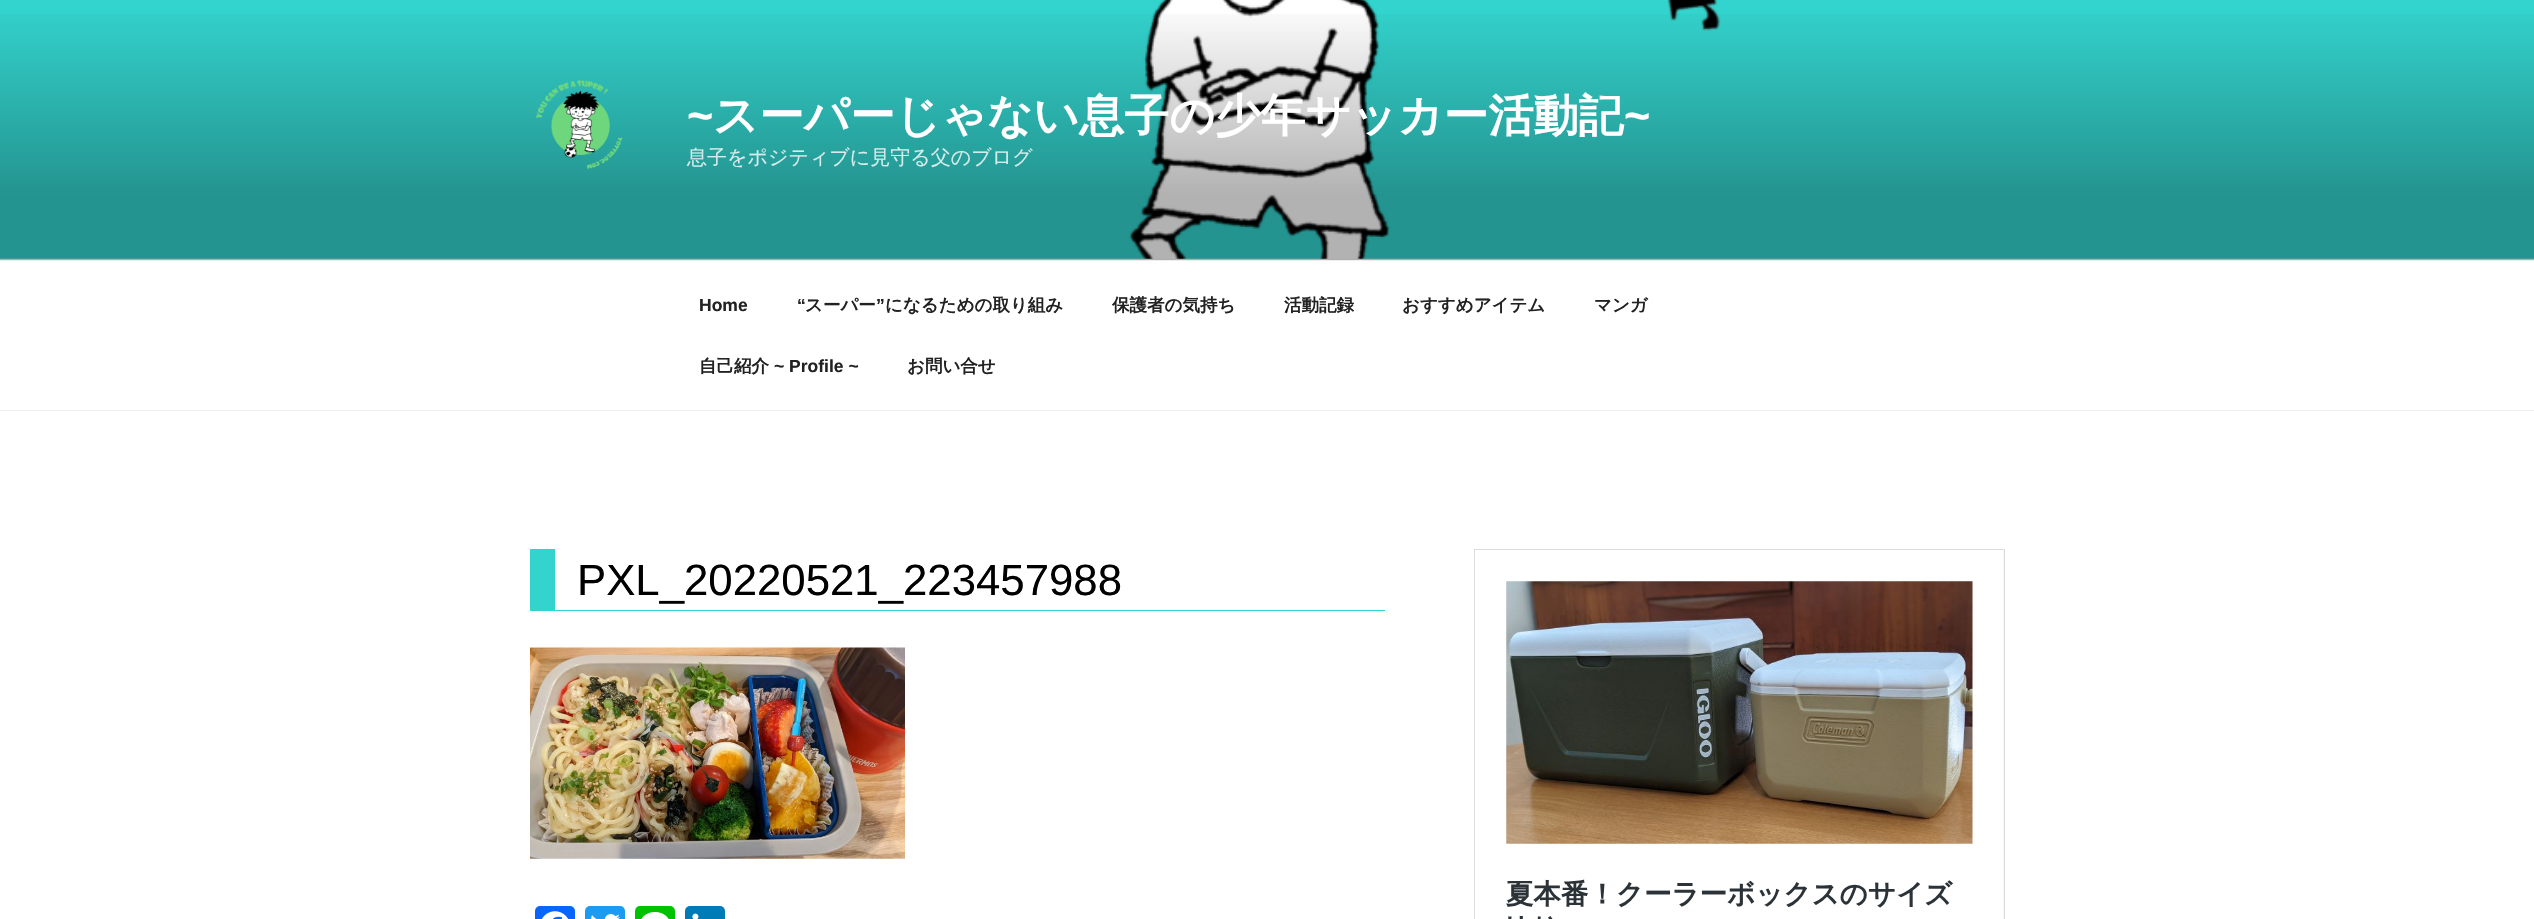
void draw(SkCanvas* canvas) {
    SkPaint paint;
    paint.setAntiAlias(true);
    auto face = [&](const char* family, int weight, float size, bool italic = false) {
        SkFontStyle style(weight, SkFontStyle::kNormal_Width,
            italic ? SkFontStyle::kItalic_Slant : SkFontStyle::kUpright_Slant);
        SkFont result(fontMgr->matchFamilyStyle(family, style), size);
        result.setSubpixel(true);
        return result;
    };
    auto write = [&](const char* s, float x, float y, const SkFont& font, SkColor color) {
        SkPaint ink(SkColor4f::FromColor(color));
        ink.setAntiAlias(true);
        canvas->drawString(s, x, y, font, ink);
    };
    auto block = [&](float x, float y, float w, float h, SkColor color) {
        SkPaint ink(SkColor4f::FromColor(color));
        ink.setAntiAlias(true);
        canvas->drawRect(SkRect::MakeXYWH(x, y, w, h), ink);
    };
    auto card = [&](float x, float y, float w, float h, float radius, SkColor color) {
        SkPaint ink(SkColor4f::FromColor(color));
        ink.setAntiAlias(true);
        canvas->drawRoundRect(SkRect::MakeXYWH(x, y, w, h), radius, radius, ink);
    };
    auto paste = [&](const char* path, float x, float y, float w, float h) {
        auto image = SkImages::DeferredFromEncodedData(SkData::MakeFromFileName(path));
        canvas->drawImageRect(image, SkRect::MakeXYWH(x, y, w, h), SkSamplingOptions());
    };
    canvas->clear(SK_ColorWHITE);
    block(0, 258, 2534, 2, SkColorSetRGB(250, 250, 250));
    paste("pic1.png", 0, 0, 2534, 259);
    {
        const SkColor colors[] = {SkColorSetARGB(0, 0, 0, 0), SkColorSetARGB(77, 0, 0, 0), SkColorSetARGB(77, 0, 0, 0)};
        const float stops[] = {0, 0.75f, 1};
        const SkPoint ends[] = {{1268, 0}, {1268, 260}};
        paint.setShader(SkGradientShader::MakeLinear(ends, colors, stops, 3, SkTileMode::kClamp));
        paint.setAlpha(255);
    }
    canvas->drawRect(SkRect::MakeXYWH(0, 14, 2534, 246), paint);
    paste("pic2.png", 535, 80, 88, 90);
    auto kFont1 = face("Liberation Sans", 700, 45);
    write("~", 687, 131, kFont1, SK_ColorWHITE);
    auto kFont2 = face("WenQuanYi Zen Hei", 700, 45);
    write("スーパーじゃない息子の少年サッカー活動記", 713, 131, kFont2, SK_ColorWHITE);
    write("~", 1624, 131, kFont1, SK_ColorWHITE);
    auto kFont3 = face("WenQuanYi Zen Hei", 500, 20);
    write("息子をポジティブに見守る父のブログ", 687, 164, kFont3, SkColorSetRGB(212, 236, 235));
    block(0, 260, 2534, 1, SkColorSetRGB(238, 238, 238));
    block(0, 410, 2534, 1, SkColorSetRGB(238, 238, 238));
    auto kFont4 = face("Liberation Sans", 700, 17.5f);
    write("Home", 699, 311, kFont4, SkColorSetRGB(34, 34, 34));
    write("“", 797, 311, kFont4, SkColorSetRGB(34, 34, 34));
    auto kFont5 = face("WenQuanYi Zen Hei", 700, 17.5f);
    write("スーパー", 805, 311, kFont5, SkColorSetRGB(34, 34, 34));
    write("”", 876, 311, kFont4, SkColorSetRGB(34, 34, 34));
    write("になるための取り組み", 885, 311, kFont5, SkColorSetRGB(34, 34, 34));
    write("保護者の気持ち", 1112, 311, kFont5, SkColorSetRGB(34, 34, 34));
    write("活動記録", 1284, 311, kFont5, SkColorSetRGB(34, 34, 34));
    write("おすすめアイテム", 1402, 311, kFont5, SkColorSetRGB(34, 34, 34));
    write("マンガ", 1594, 311, kFont5, SkColorSetRGB(34, 34, 34));
    write("自己紹介", 699, 372, kFont5, SkColorSetRGB(34, 34, 34));
    write("~ Profile ~", 774, 372, kFont4, SkColorSetRGB(34, 34, 34));
    write("お問い合せ", 907, 372, kFont5, SkColorSetRGB(34, 34, 34));
    block(555, 610, 830, 1, SkColorSetRGB(51, 212, 206));
    block(530, 549, 25, 62, SkColorSetRGB(51, 212, 206));
    auto kFont6 = face("Liberation Sans", 400, 43.75f);
    write("PXL_20220521_223457988", 577, 595, kFont6, SK_ColorBLACK);
    paste("pic3.png", 530, 647, 375, 212);
    card(535, 906, 40, 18, 5, SkColorSetRGB(8, 102, 255));
    paste("pic4.png", 542, 911, 26, 8);
    card(585, 906, 40, 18, 5, SkColorSetRGB(29, 155, 240));
    paste("pic5.png", 591, 914, 29, 5);
    card(635, 906, 40, 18, 5, SkColorSetRGB(0, 195, 0));
    paste("pic6.png", 641, 912, 28, 7);
    card(685, 906, 40, 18, 5, SkColorSetRGB(0, 123, 181));
    paste("pic7.png", 692, 913, 7, 6);
    paste("pic8.png", 1474, 549, 531, 370);
}
